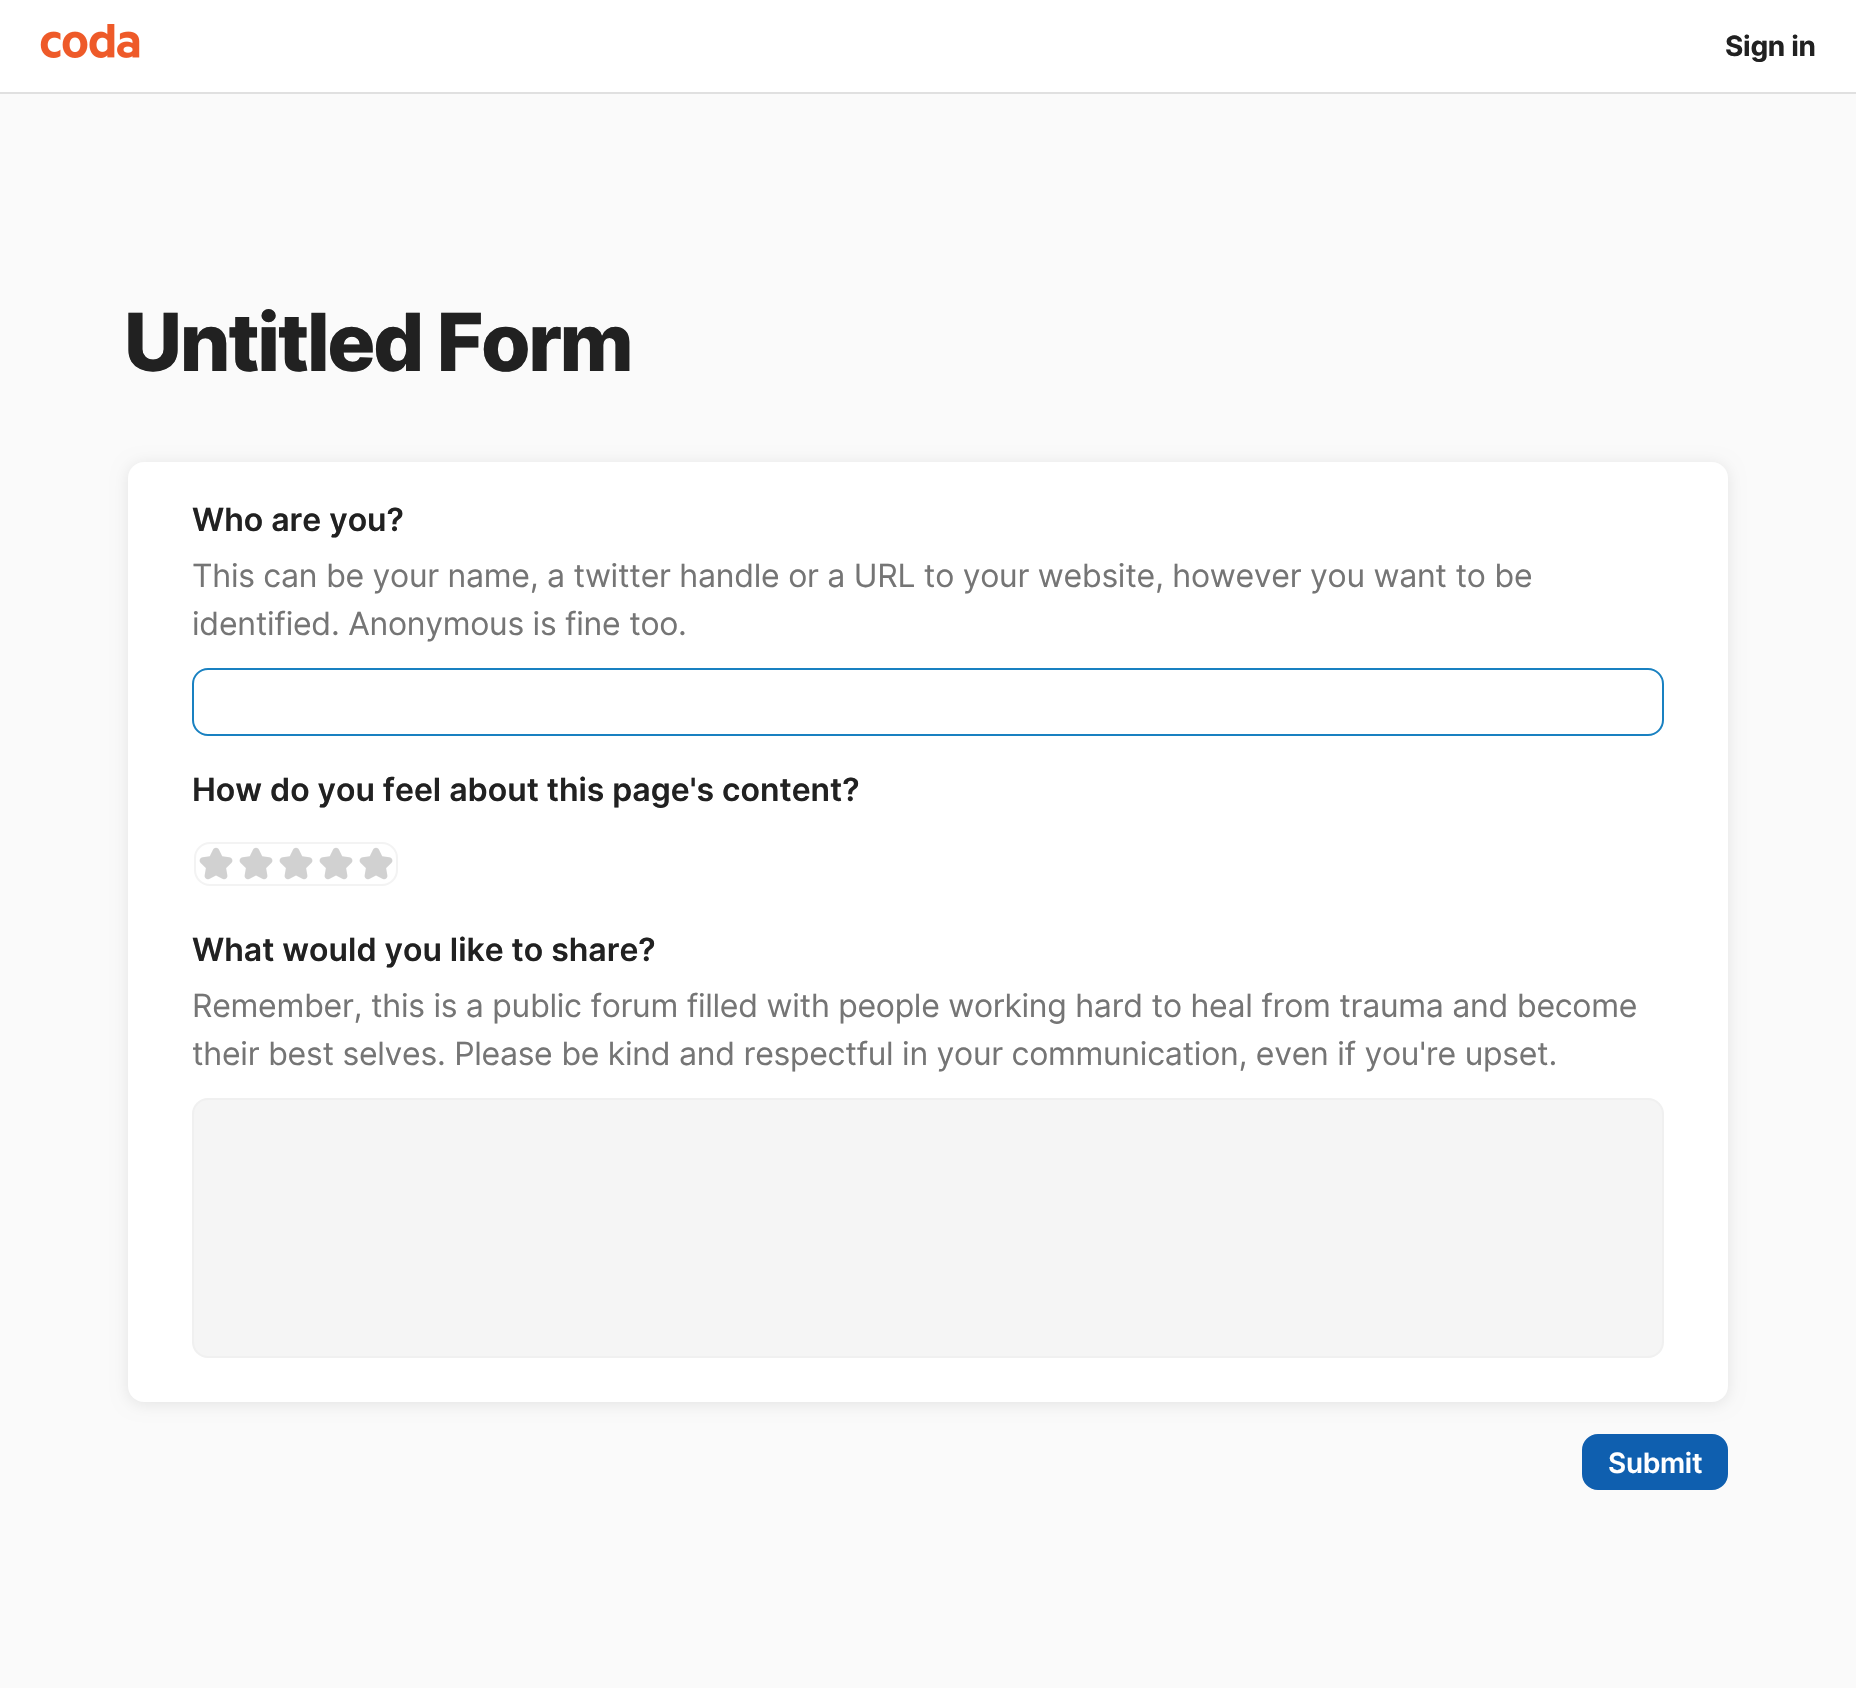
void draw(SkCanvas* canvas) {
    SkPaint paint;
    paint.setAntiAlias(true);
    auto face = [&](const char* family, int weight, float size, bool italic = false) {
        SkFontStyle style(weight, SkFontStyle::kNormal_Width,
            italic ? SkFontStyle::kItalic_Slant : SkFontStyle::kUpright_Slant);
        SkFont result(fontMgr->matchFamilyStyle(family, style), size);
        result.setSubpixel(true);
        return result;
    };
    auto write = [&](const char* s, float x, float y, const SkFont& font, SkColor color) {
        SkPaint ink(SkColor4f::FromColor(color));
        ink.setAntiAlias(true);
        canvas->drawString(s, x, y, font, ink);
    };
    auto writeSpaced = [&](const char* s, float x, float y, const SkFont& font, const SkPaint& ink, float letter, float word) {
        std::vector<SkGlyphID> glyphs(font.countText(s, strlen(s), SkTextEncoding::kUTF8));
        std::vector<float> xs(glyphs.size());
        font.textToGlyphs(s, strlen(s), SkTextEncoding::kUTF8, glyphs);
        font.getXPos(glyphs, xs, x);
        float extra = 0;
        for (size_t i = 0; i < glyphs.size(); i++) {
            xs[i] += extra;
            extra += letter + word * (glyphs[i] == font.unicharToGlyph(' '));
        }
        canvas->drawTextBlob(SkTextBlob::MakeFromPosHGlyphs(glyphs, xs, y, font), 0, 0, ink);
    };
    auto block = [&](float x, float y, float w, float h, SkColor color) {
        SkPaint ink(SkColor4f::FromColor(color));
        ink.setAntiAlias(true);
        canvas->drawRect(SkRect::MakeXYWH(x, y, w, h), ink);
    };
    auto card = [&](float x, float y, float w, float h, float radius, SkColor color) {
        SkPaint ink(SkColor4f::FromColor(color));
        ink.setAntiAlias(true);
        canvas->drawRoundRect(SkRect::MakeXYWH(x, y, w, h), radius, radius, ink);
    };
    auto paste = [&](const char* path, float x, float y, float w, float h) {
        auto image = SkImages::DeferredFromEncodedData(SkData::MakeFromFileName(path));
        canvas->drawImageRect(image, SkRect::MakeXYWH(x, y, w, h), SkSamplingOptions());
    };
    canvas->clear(SkColorSetRGB(250, 250, 250));
    block(0, 0, 1856, 92, SK_ColorWHITE);
    block(0, 92, 1856, 2, SkColorSetRGB(224, 224, 224));
    paste("pic1.png", 40, 24, 100, 34);
    auto kFont1 = face("Inter", 700, 28);
    paint.setColor(SkColorSetRGB(33, 33, 33));
    writeSpaced("Sign in", 1725, 56, kFont1, paint, -0.28f, 0);
    auto kFont2 = face("Inter", 800, 80);
    writeSpaced("Untitled Form", 124, 371, kFont2, paint, -2.4f, 0);
    paint.setColor(SkColorSetARGB(23, 0, 0, 0));
    paint.setMaskFilter(SkMaskFilter::MakeBlur(kNormal_SkBlurStyle, 8));
    canvas->drawRoundRect(SkRect::MakeXYWH(128, 464, 1600, 940), 16, 16, paint);
    paint.setMaskFilter(nullptr);
    card(128, 462, 1600, 940, 16, SK_ColorWHITE);
    auto kFont3 = face("Inter", 600, 32);
    write("Who are you?", 192, 531, kFont3, SkColorSetRGB(33, 33, 33));
    auto kFont4 = face("Inter", 400, 32);
    paint.setColor(SkColorSetRGB(117, 117, 117));
    writeSpaced("This can be your name, a twitter handle or a URL to your website, however you want to be", 192, 587, kFont4, paint, -0.28f, 0);
    writeSpaced("identified. Anonymous is fine too.", 192, 635, kFont4, paint, -0.28f, 0);
    paint.setStyle(SkPaint::kStroke_Style);
    paint.setStrokeWidth(2);
    paint.setColor(SkColorSetRGB(25, 129, 193));
    canvas->drawRoundRect(SkRect::MakeXYWH(193, 669, 1470, 66), 15, 15, paint);
    write("How do you feel about this page's content?", 192, 801, kFont3, SkColorSetRGB(33, 33, 33));
    paint.setColor(SkColorSetRGB(243, 243, 243));
    canvas->drawRoundRect(SkRect::MakeXYWH(195, 843, 202, 42), 15, 15, paint);
    paste("pic2.png", 199, 847, 34, 33);
    paste("pic3.png", 239, 847, 34, 33);
    paste("pic3.png", 279, 847, 34, 33);
    paste("pic3.png", 319, 847, 34, 33);
    paste("pic4.png", 359, 847, 34, 33);
    write("What would you like to share?", 192, 961, kFont3, SkColorSetRGB(33, 33, 33));
    paint.setStyle(SkPaint::kFill_Style);
    paint.setColor(SkColorSetRGB(117, 117, 117));
    writeSpaced("Remember, this is a public forum filled with people working hard to heal from trauma and become", 192, 1017, kFont4, paint, -0.28f, 0);
    writeSpaced("their best selves. Please be kind and respectful in your communication, even if you're upset.", 192, 1065, kFont4, paint, -0.28f, 0);
    paint.setColor(SkColorSetRGB(245, 245, 245));
    canvas->drawRoundRect(SkRect::MakeXYWH(193, 1099, 1470, 258), 15, 15, paint);
    paint.setStyle(SkPaint::kStroke_Style);
    paint.setColor(SkColorSetRGB(240, 240, 240));
    canvas->drawRoundRect(SkRect::MakeXYWH(193, 1099, 1470, 258), 15, 15, paint);
    paint.setStyle(SkPaint::kFill_Style);
    paint.setColor(SkColorSetRGB(15, 95, 175));
    canvas->drawRoundRect(SkRect::MakeXYWH(1583, 1435, 144, 54), 15, 15, paint);
    paint.setStyle(SkPaint::kStroke_Style);
    canvas->drawRoundRect(SkRect::MakeXYWH(1583, 1435, 144, 54), 15, 15, paint);
    auto kFont5 = face("Inter", 600, 28);
    paint.setStyle(SkPaint::kFill_Style);
    paint.setColor(SK_ColorWHITE);
    writeSpaced("Submit", 1608, 1473, kFont5, paint, -0.28f, 0);
}
